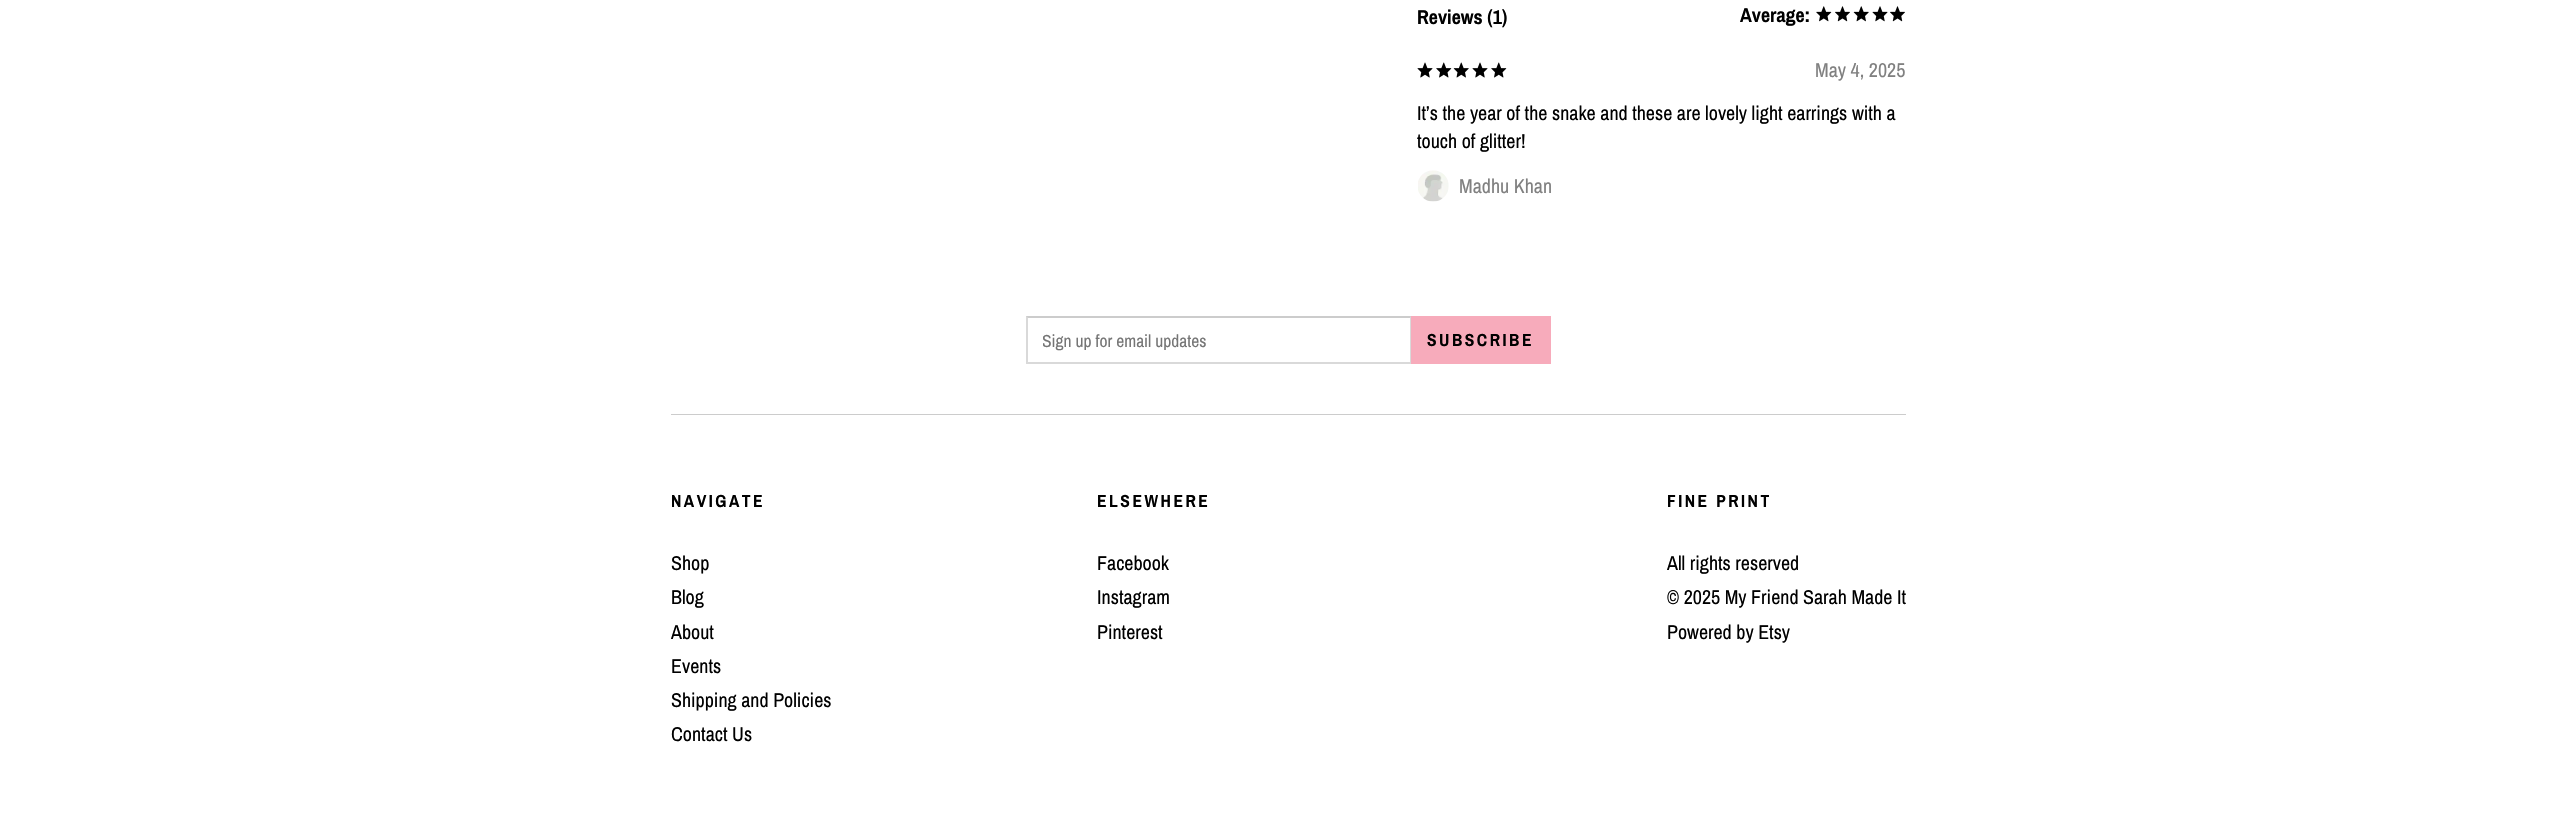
void draw(SkCanvas* canvas) {
    SkPaint paint;
    paint.setAntiAlias(true);
    auto face = [&](const char* family, int weight, float size, bool italic = false) {
        SkFontStyle style(weight, SkFontStyle::kNormal_Width,
            italic ? SkFontStyle::kItalic_Slant : SkFontStyle::kUpright_Slant);
        SkFont result(fontMgr->matchFamilyStyle(family, style), size);
        result.setSubpixel(true);
        return result;
    };
    auto write = [&](const char* s, float x, float y, const SkFont& font, SkColor color) {
        SkPaint ink(SkColor4f::FromColor(color));
        ink.setAntiAlias(true);
        canvas->drawString(s, x, y, font, ink);
    };
    auto writeSpaced = [&](const char* s, float x, float y, const SkFont& font, const SkPaint& ink, float letter, float word) {
        std::vector<SkGlyphID> glyphs(font.countText(s, strlen(s), SkTextEncoding::kUTF8));
        std::vector<float> xs(glyphs.size());
        font.textToGlyphs(s, strlen(s), SkTextEncoding::kUTF8, glyphs);
        font.getXPos(glyphs, xs, x);
        float extra = 0;
        for (size_t i = 0; i < glyphs.size(); i++) {
            xs[i] += extra;
            extra += letter + word * (glyphs[i] == font.unicharToGlyph(' '));
        }
        canvas->drawTextBlob(SkTextBlob::MakeFromPosHGlyphs(glyphs, xs, y, font), 0, 0, ink);
    };
    auto block = [&](float x, float y, float w, float h, SkColor color) {
        SkPaint ink(SkColor4f::FromColor(color));
        ink.setAntiAlias(true);
        canvas->drawRect(SkRect::MakeXYWH(x, y, w, h), ink);
    };
    auto paste = [&](const char* path, float x, float y, float w, float h) {
        auto image = SkImages::DeferredFromEncodedData(SkData::MakeFromFileName(path));
        canvas->drawImageRect(image, SkRect::MakeXYWH(x, y, w, h), SkSamplingOptions());
    };
    canvas->clear(SK_ColorWHITE);
    auto kFont1 = face("Archivo Narrow", 700, 20);
    write("Reviews (1)", 1417, 24, kFont1, SK_ColorBLACK);
    write("Average:", 1740, 22, kFont1, SK_ColorBLACK);
    paste("pic1.png", 1816, 6, 16, 16);
    paste("pic2.png", 1835, 6, 15, 16);
    paste("pic3.png", 1853, 6, 16, 16);
    paste("pic4.png", 1872, 6, 16, 16);
    paste("pic2.png", 1890, 6, 15, 16);
    paste("pic5.png", 1417, 62, 16, 16);
    paste("pic6.png", 1436, 62, 16, 16);
    paste("pic7.png", 1453, 62, 16, 16);
    paste("pic5.png", 1472, 62, 16, 16);
    paste("pic6.png", 1491, 62, 16, 16);
    auto kFont2 = face("Archivo Narrow", 400, 20);
    write("May 4, 2025", 1815, 77, kFont2, SkColorSetRGB(128, 128, 128));
    write("It’s the year of the snake and these are lovely light earrings with a", 1417, 120, kFont2, SK_ColorBLACK);
    write("touch of glitter!", 1417, 148, kFont2, SK_ColorBLACK);
    paste("pic8.png", 1418, 170, 31, 32);
    write("Madhu Khan", 1459, 193, kFont2, SkColorSetRGB(128, 128, 128));
    paint.setColor(SkColorSetRGB(204, 204, 204));
    canvas->drawPath(SkPathBuilder().moveTo(1026, 316).lineTo(1411, 316).lineTo(1410, 318).lineTo(1028, 318).close().detach(), paint);
    paint.setColor(SkColorSetARGB(38, 0, 0, 0));
    canvas->drawPath(SkPathBuilder().moveTo(1411, 316).lineTo(1411, 364).lineTo(1410, 362).lineTo(1410, 318).close().detach(), paint);
    canvas->drawPath(SkPathBuilder().moveTo(1411, 364).lineTo(1026, 364).lineTo(1028, 362).lineTo(1410, 362).close().detach(), paint);
    canvas->drawPath(SkPathBuilder().moveTo(1026, 364).lineTo(1026, 316).lineTo(1028, 318).lineTo(1028, 362).close().detach(), paint);
    canvas->save();
    canvas->clipRect(SkRect::MakeXYWH(1043, 329, 352, 22));
    auto kFont3 = face("Archivo Narrow", 400, 17.5f);
    write("Sign up for email updates", 1042, 347, kFont3, SkColorSetRGB(117, 117, 117));
    canvas->restore();
    block(1411, 316, 140, 48, SkColorSetRGB(247, 171, 187));
    auto kFont4 = face("Archivo Narrow", 700, 17.5f);
    paint.setColor(SK_ColorBLACK);
    writeSpaced("SUBSCRIBE", 1427, 346, kFont4, paint, 2.5f, 0);
    block(671, 414, 1235, 1, SkColorSetRGB(204, 204, 204));
    writeSpaced("NAVIGATE", 671, 507, kFont4, paint, 2.5f, 0);
    write("Shop", 671, 570, kFont2, SK_ColorBLACK);
    write("Blog", 671, 604, kFont2, SK_ColorBLACK);
    write("About", 671, 639, kFont2, SK_ColorBLACK);
    write("Events", 671, 673, kFont2, SK_ColorBLACK);
    write("Shipping and Policies", 671, 707, kFont2, SK_ColorBLACK);
    write("Contact Us", 671, 741, kFont2, SK_ColorBLACK);
    writeSpaced("ELSEWHERE", 1097, 507, kFont4, paint, 2.5f, 0);
    write("Facebook", 1097, 570, kFont2, SK_ColorBLACK);
    write("Instagram", 1097, 604, kFont2, SK_ColorBLACK);
    write("Pinterest", 1097, 639, kFont2, SK_ColorBLACK);
    writeSpaced("FINE PRINT", 1667, 507, kFont4, paint, 2.5f, 0);
    write("All rights reserved", 1667, 570, kFont2, SK_ColorBLACK);
    write("© 2025 My Friend Sarah Made It", 1667, 604, kFont2, SK_ColorBLACK);
    write("Powered by Etsy", 1667, 639, kFont2, SK_ColorBLACK);
}
